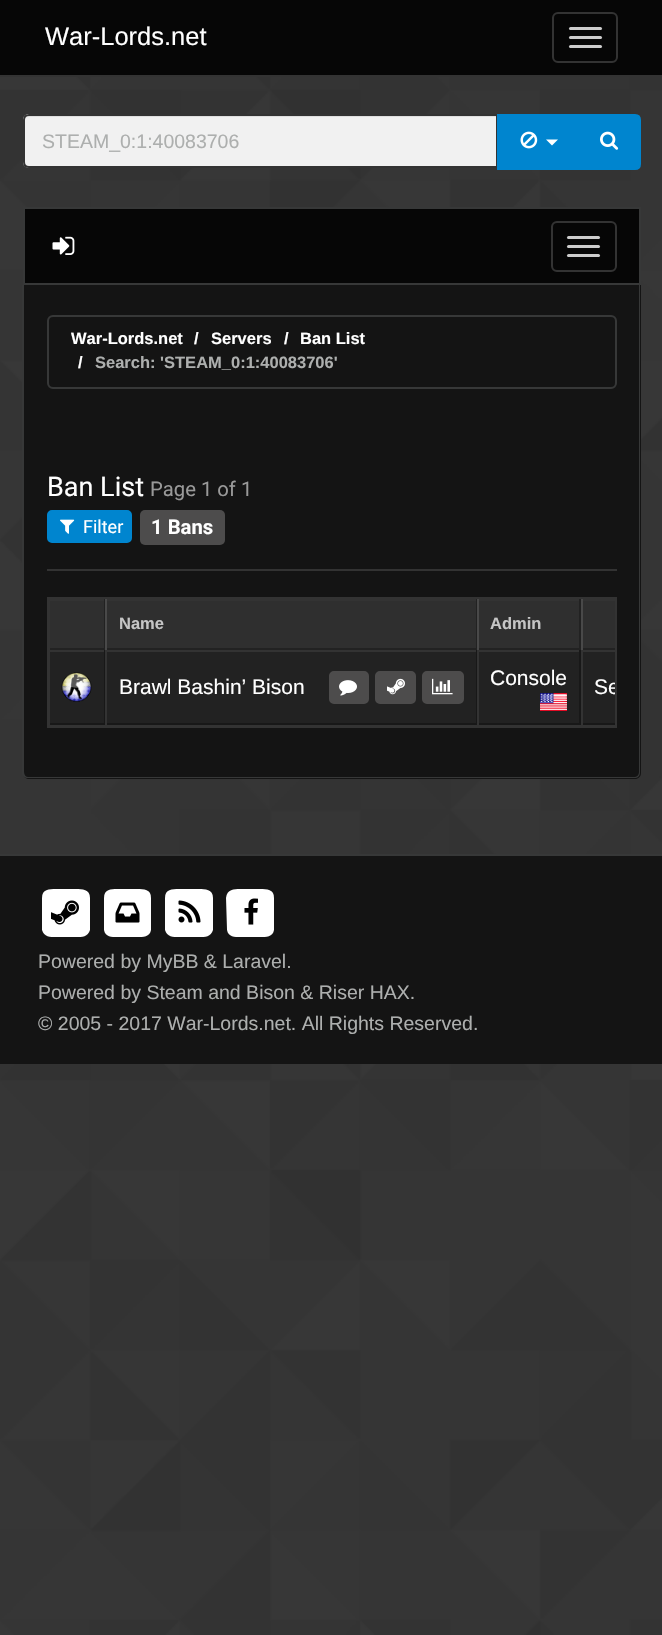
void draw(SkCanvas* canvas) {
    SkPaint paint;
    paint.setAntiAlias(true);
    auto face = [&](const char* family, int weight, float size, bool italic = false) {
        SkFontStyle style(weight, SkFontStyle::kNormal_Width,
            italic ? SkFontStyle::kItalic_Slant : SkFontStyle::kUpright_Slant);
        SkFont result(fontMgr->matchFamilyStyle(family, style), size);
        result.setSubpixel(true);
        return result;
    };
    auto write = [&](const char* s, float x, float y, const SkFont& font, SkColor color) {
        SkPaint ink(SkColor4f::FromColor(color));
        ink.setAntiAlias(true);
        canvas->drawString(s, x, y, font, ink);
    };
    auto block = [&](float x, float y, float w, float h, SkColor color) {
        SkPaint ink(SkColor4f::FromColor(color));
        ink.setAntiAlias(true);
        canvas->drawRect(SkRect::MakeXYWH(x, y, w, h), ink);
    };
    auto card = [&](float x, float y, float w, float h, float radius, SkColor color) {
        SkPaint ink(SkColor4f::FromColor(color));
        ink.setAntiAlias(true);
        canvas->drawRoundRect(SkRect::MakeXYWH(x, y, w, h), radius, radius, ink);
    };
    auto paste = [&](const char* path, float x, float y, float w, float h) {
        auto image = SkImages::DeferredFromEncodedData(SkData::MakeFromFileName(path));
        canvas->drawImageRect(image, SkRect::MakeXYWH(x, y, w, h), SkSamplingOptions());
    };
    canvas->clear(SK_ColorWHITE);
    paste("pic1.png", 0, 77, 662, 1558);
    block(0, 0, 662, 75, SkColorSetRGB(6, 6, 6));
    block(0, 75, 662, 2, SkColorSetRGB(51, 51, 51));
    auto kFont1 = face("Liberation Sans", 400, 25.5f);
    write("War-Lords.net", 45, 45, kFont1, SK_ColorWHITE);
    paint.setStyle(SkPaint::kStroke_Style);
    paint.setStrokeWidth(2);
    paint.setColor(SkColorSetRGB(51, 51, 51));
    canvas->drawRoundRect(SkRect::MakeXYWH(553, 13, 64, 49), 5, 5, paint);
    card(569, 27, 33, 3, 1.5f, SkColorSetRGB(204, 204, 204));
    card(569, 36, 33, 3, 1.5f, SkColorSetRGB(204, 204, 204));
    card(569, 45, 33, 3, 1.5f, SkColorSetRGB(204, 204, 204));
    paint.setStyle(SkPaint::kFill_Style);
    paint.setColor(SkColorSetRGB(241, 241, 241));
    canvas->drawPath(SkPathBuilder().moveTo(29, 114).lineTo(498, 114).lineTo(498, 168).lineTo(29, 168).cubicTo(25.5f, 168, 23, 165.5f, 23, 162).lineTo(23, 120).cubicTo(23, 116.5f, 25.5f, 114, 29, 114).close().detach(), paint);
    paint.setColor(SkColorSetRGB(223, 223, 223));
    canvas->drawPath(SkPathBuilder().moveTo(28, 117).lineTo(496, 117).lineTo(496, 167).lineTo(497, 167).lineTo(497, 116).lineTo(29, 116).cubicTo(26, 116, 24, 118, 24, 121).lineTo(24, 122).cubicTo(24, 119, 26, 117, 28, 117).close().detach(), paint);
    paint.setStyle(SkPaint::kStroke_Style);
    paint.setColor(SkColorSetRGB(51, 51, 51));
    canvas->drawPath(SkPathBuilder().moveTo(29, 115).lineTo(497, 115).lineTo(497, 167).lineTo(29, 167).cubicTo(26, 167, 24, 165, 24, 162).lineTo(24, 120).cubicTo(24, 117, 26, 115, 29, 115).close().detach(), paint);
    auto kFont2 = face("Liberation Sans", 400, 19.5f);
    write("STEAM_0:1:40083706", 42, 148, kFont2, SkColorSetRGB(173, 175, 174));
    block(497, 114, 79, 56, SkColorSetRGB(0, 133, 207));
    paste("pic2.png", 520, 131, 18, 18);
    paint.setStyle(SkPaint::kFill_Style);
    paint.setColor(SK_ColorWHITE);
    canvas->drawPath(SkPathBuilder().moveTo(546, 139.5f).lineTo(558, 139.5f).lineTo(552, 145.5f).close().detach(), paint);
    paint.setColor(SkColorSetRGB(0, 133, 207));
    canvas->drawPath(SkPathBuilder().moveTo(577, 115).lineTo(635, 115).cubicTo(638, 115, 640, 117, 640, 120).lineTo(640, 164).cubicTo(640, 167, 638, 169, 635, 169).lineTo(577, 169).close().detach(), paint);
    paint.setStyle(SkPaint::kStroke_Style);
    canvas->drawPath(SkPathBuilder().moveTo(577, 115).lineTo(635, 115).cubicTo(638, 115, 640, 117, 640, 120).lineTo(640, 164).cubicTo(640, 167, 638, 169, 635, 169).lineTo(577, 169).close().detach(), paint);
    paste("pic3.png", 600, 131, 19, 19);
    paint.setStyle(SkPaint::kFill_Style);
    paint.setColor(SkColorSetRGB(6, 6, 6));
    canvas->drawRect(SkRect::MakeXYWH(24, 208, 616, 76), paint);
    paint.setStyle(SkPaint::kStroke_Style);
    paint.setColor(SkColorSetRGB(55, 56, 56));
    canvas->drawRect(SkRect::MakeXYWH(24, 208, 616, 76), paint);
    paste("pic4.png", 52, 236, 23, 19);
    paint.setColor(SkColorSetRGB(51, 51, 51));
    canvas->drawRoundRect(SkRect::MakeXYWH(552, 222, 64, 49), 5, 5, paint);
    card(567, 236, 33, 3, 1.5f, SkColorSetRGB(204, 204, 204));
    card(567, 245, 33, 3, 1.5f, SkColorSetRGB(204, 204, 204));
    card(567, 254, 33, 3, 1.5f, SkColorSetRGB(204, 204, 204));
    paint.setStyle(SkPaint::kFill_Style);
    paint.setColor(SkColorSetRGB(20, 20, 20));
    canvas->drawPath(SkPathBuilder().moveTo(23, 285).lineTo(641, 285).lineTo(641, 773).cubicTo(641, 776.5f, 638.5f, 779, 635, 779).lineTo(29, 779).cubicTo(25.5f, 779, 23, 776.5f, 23, 773).close().detach(), paint);
    paint.setColor(SkColorSetRGB(55, 56, 56));
    canvas->drawPath(SkPathBuilder(SkPathFillType::kEvenOdd).moveTo(22, 285).lineTo(640, 285).lineTo(640, 772).cubicTo(640, 776, 638, 778, 634, 778).lineTo(28, 778).cubicTo(25, 778, 22, 776, 22, 772).close().moveTo(24, 285).lineTo(639, 285).lineTo(639, 772).cubicTo(639, 775, 637, 777, 634, 777).lineTo(28, 777).cubicTo(26, 777, 24, 775, 24, 772).close().detach(), paint);
    paint.setStyle(SkPaint::kStroke_Style);
    canvas->drawRoundRect(SkRect::MakeXYWH(48, 316, 568, 72), 5, 5, paint);
    auto kFont3 = face("Liberation Sans", 700, 16.5f);
    write("War-Lords.net", 71, 344, kFont3, SK_ColorWHITE);
    write("/", 194, 344, kFont3, SK_ColorWHITE);
    write("Servers", 211, 344, kFont3, SK_ColorWHITE);
    write("/", 284, 344, kFont3, SK_ColorWHITE);
    write("Ban List", 300, 344, kFont3, SK_ColorWHITE);
    write("/", 78, 368, kFont3, SK_ColorWHITE);
    write("Search: 'STEAM_0:1:40083706'", 95, 368, kFont3, SkColorSetRGB(173, 175, 174));
    block(47, 569, 570, 2, SkColorSetRGB(51, 51, 51));
    auto kFont4 = face("Roboto", 400, 27);
    write("Ban List", 47, 496, kFont4, SK_ColorWHITE);
    auto kFont5 = face("Roboto", 400, 20.25f);
    write("Page 1 of 1", 150, 496, kFont5, SkColorSetRGB(153, 153, 153));
    paint.setStyle(SkPaint::kFill_Style);
    paint.setColor(SkColorSetRGB(0, 133, 207));
    canvas->drawRoundRect(SkRect::MakeXYWH(48, 511, 83, 31), 4, 4, paint);
    paint.setStyle(SkPaint::kStroke_Style);
    canvas->drawRoundRect(SkRect::MakeXYWH(48, 511, 83, 31), 4, 4, paint);
    paste("pic5.png", 60, 519, 15, 15);
    auto kFont6 = face("Roboto", 400, 18);
    write("Filter", 83, 533, kFont6, SK_ColorWHITE);
    card(140, 510, 85, 35, 5, SkColorSetRGB(77, 76, 76));
    auto kFont7 = face("Roboto", 700, 20.25f);
    write("1 Bans", 151, 534, kFont7, SK_ColorWHITE);
    paint.setColor(SkColorSetRGB(51, 51, 51));
    canvas->drawRect(SkRect::MakeXYWH(48, 598, 568, 129), paint);
    block(48, 725, 567, 1, SkColorSetRGB(51, 51, 51));
    block(49, 599, 1, 127, SkColorSetRGB(51, 51, 51));
    block(50, 601, 54, 47, SkColorSetRGB(47, 47, 47));
    block(50, 599, 565, 2, SkColorSetRGB(51, 51, 51));
    block(104, 599, 1, 51, SkColorSetRGB(34, 34, 34));
    block(50, 648, 267, 2, SkColorSetRGB(34, 34, 34));
    block(107, 601, 369, 47, SkColorSetRGB(47, 47, 47));
    block(105, 599, 2, 51, SkColorSetRGB(73, 73, 73));
    write("Name", 119, 629, kFont3, SkColorSetRGB(197, 197, 197));
    block(476, 599, 1, 51, SkColorSetRGB(34, 34, 34));
    block(317, 648, 160, 2, SkColorSetRGB(34, 34, 34));
    block(479, 601, 100, 47, SkColorSetRGB(47, 47, 47));
    block(579, 599, 2, 51, SkColorSetRGB(34, 34, 34));
    block(477, 648, 138, 2, SkColorSetRGB(34, 34, 34));
    block(477, 599, 2, 51, SkColorSetRGB(73, 73, 73));
    write("Admin", 490, 629, kFont3, SkColorSetRGB(197, 197, 197));
    block(583, 601, 32, 47, SkColorSetRGB(47, 47, 47));
    block(581, 599, 2, 51, SkColorSetRGB(73, 73, 73));
    block(50, 652, 54, 71, SkColorSetRGB(34, 34, 34));
    block(50, 650, 565, 2, SkColorSetRGB(51, 51, 51));
    block(104, 650, 1, 75, SkColorSetRGB(24, 24, 24));
    block(50, 723, 267, 2, SkColorSetRGB(24, 24, 24));
    paste("pic6.png", 61, 672, 31, 30);
    block(107, 652, 369, 71, SkColorSetRGB(34, 34, 34));
    block(105, 650, 2, 75, SkColorSetRGB(51, 51, 51));
    auto kFont8 = face("Liberation Sans", 400, 21);
    write("Brawl Bashin’ Bison", 119, 694, kFont8, SK_ColorWHITE);
    block(476, 650, 1, 75, SkColorSetRGB(24, 24, 24));
    block(317, 723, 160, 2, SkColorSetRGB(24, 24, 24));
    paint.setStyle(SkPaint::kFill_Style);
    paint.setColor(SkColorSetRGB(77, 76, 76));
    canvas->drawRoundRect(SkRect::MakeXYWH(330, 672, 38, 31), 4, 4, paint);
    paint.setStyle(SkPaint::kStroke_Style);
    canvas->drawRoundRect(SkRect::MakeXYWH(330, 672, 38, 31), 4, 4, paint);
    paste("pic7.png", 339, 680, 18, 16);
    paint.setStyle(SkPaint::kFill_Style);
    canvas->drawRoundRect(SkRect::MakeXYWH(376, 672, 39, 31), 4, 4, paint);
    paint.setStyle(SkPaint::kStroke_Style);
    canvas->drawRoundRect(SkRect::MakeXYWH(376, 672, 39, 31), 4, 4, paint);
    paste("pic8.png", 387, 678, 18, 17);
    paint.setStyle(SkPaint::kFill_Style);
    canvas->drawRoundRect(SkRect::MakeXYWH(423, 672, 40, 31), 4, 4, paint);
    paint.setStyle(SkPaint::kStroke_Style);
    canvas->drawRoundRect(SkRect::MakeXYWH(423, 672, 40, 31), 4, 4, paint);
    paste("pic9.png", 432, 678, 21, 17);
    block(479, 652, 100, 71, SkColorSetRGB(34, 34, 34));
    block(579, 650, 2, 75, SkColorSetRGB(24, 24, 24));
    block(477, 723, 138, 2, SkColorSetRGB(24, 24, 24));
    block(477, 650, 2, 75, SkColorSetRGB(51, 51, 51));
    write("Console", 490, 685, kFont8, SK_ColorWHITE);
    paste("pic10.png", 540, 693, 27, 18);
    block(583, 652, 32, 71, SkColorSetRGB(34, 34, 34));
    block(581, 650, 2, 75, SkColorSetRGB(51, 51, 51));
    canvas->save();
    canvas->clipRect(SkRect::MakeXYWH(48, 599, 567, 127));
    write("Se", 594, 694, kFont8, SK_ColorWHITE);
    canvas->restore();
    block(0, 856, 662, 208, SkColorSetRGB(20, 20, 20));
    block(0, 854, 662, 2, SkColorSetRGB(55, 56, 56));
    paint.setStyle(SkPaint::kFill_Style);
    paint.setColor(SK_ColorWHITE);
    canvas->drawPath(SkPathBuilder().moveTo(90, 898).lineTo(90, 930).cubicTo(88, 937, 82, 937, 76, 937).lineTo(56, 937).cubicTo(50, 937, 44, 937, 42, 930).lineTo(42, 898).cubicTo(42, 889, 49, 889, 56, 889).lineTo(76, 889).cubicTo(82, 889, 90, 889, 90, 898).close().detach(), paint);
    paste("pic11.png", 51, 900, 28, 25);
    canvas->drawPath(SkPathBuilder().moveTo(151, 898).lineTo(151, 930).cubicTo(150, 937, 143, 937, 137, 937).lineTo(117, 937).cubicTo(112, 937, 105, 937, 104, 930).lineTo(104, 898).cubicTo(104, 889, 111, 889, 117, 889).lineTo(137, 889).cubicTo(144, 889, 151, 889, 151, 898).close().detach(), paint);
    paste("pic12.png", 115, 902, 25, 21);
    canvas->drawPath(SkPathBuilder().moveTo(213, 898).lineTo(213, 930).cubicTo(211, 937, 205, 937, 199, 937).lineTo(179, 937).cubicTo(173, 937, 167, 937, 165, 930).lineTo(165, 898).cubicTo(165, 889, 172, 889, 179, 889).lineTo(199, 889).cubicTo(205, 889, 213, 889, 213, 898).close().detach(), paint);
    paste("pic13.png", 178, 900, 23, 23);
    canvas->drawPath(SkPathBuilder().moveTo(274, 898).lineTo(274, 930).cubicTo(273, 937, 266, 937, 260, 937).lineTo(240, 937).cubicTo(235, 937, 228, 937, 227, 930).lineTo(226, 898).cubicTo(227, 889, 234, 889, 240, 889).lineTo(260, 889).cubicTo(267, 889, 274, 889, 274, 898).close().detach(), paint);
    paste("pic14.png", 244, 898, 14, 27);
    write("Powered by MyBB & Laravel.", 38, 968, kFont2, SkColorSetRGB(173, 175, 174));
    write("Powered by Steam and Bison & Riser HAX.", 38, 999, kFont2, SkColorSetRGB(173, 175, 174));
    write("© 2005 - 2017 War-Lords.net. All Rights Reserved.", 38, 1030, kFont2, SkColorSetRGB(173, 175, 174));
}
